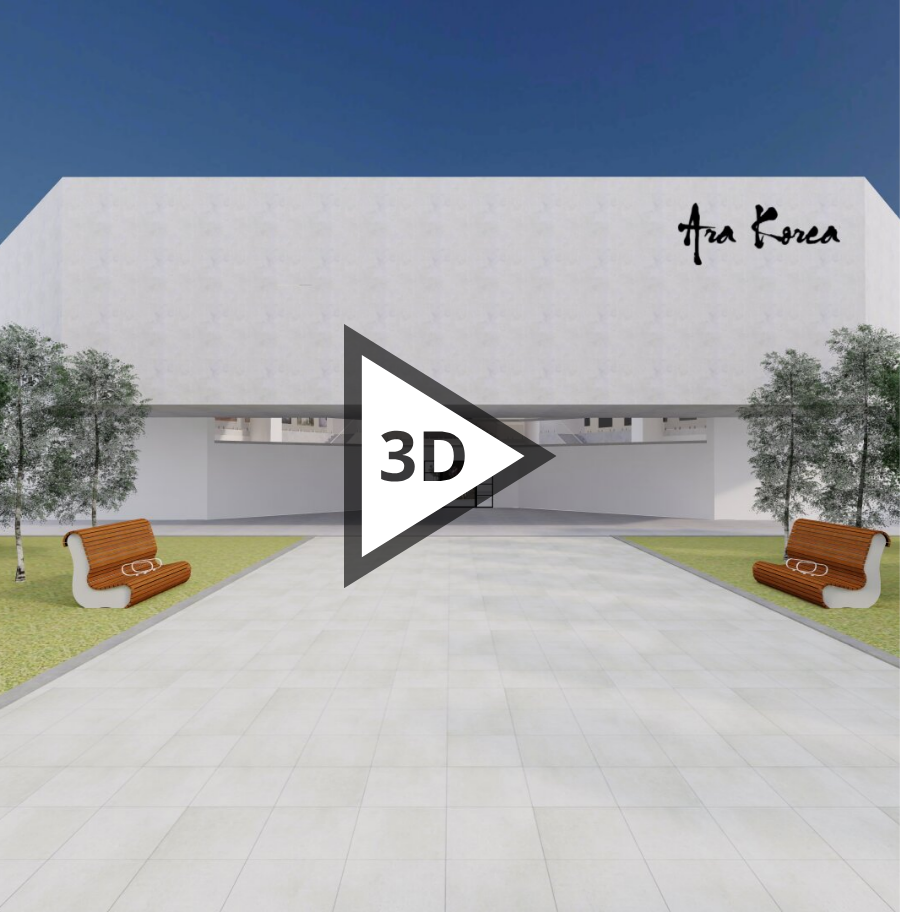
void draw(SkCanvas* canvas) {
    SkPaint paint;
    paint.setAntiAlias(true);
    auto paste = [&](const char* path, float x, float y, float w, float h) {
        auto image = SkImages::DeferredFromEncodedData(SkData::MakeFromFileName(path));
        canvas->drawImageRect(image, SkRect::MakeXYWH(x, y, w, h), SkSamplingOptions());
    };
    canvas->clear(SK_ColorWHITE);
    paste("pic1.png", 0, 0, 900, 912);
    paste("pic2.png", 344, 324, 213, 264);
}
